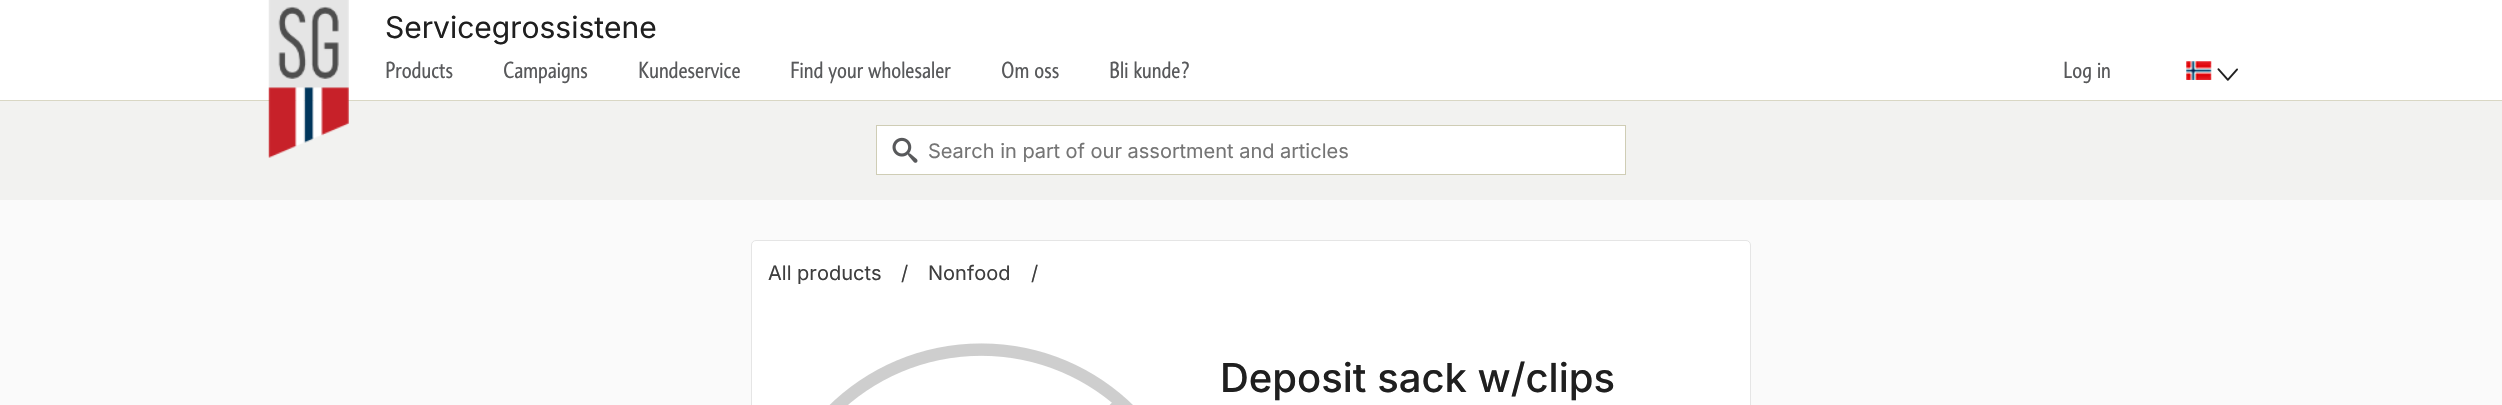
void draw(SkCanvas* canvas) {
    SkPaint paint;
    paint.setAntiAlias(true);
    auto face = [&](const char* family, int weight, float size, bool italic = false) {
        SkFontStyle style(weight, SkFontStyle::kNormal_Width,
            italic ? SkFontStyle::kItalic_Slant : SkFontStyle::kUpright_Slant);
        SkFont result(fontMgr->matchFamilyStyle(family, style), size);
        result.setSubpixel(true);
        return result;
    };
    auto write = [&](const char* s, float x, float y, const SkFont& font, SkColor color) {
        SkPaint ink(SkColor4f::FromColor(color));
        ink.setAntiAlias(true);
        canvas->drawString(s, x, y, font, ink);
    };
    auto block = [&](float x, float y, float w, float h, SkColor color) {
        SkPaint ink(SkColor4f::FromColor(color));
        ink.setAntiAlias(true);
        canvas->drawRect(SkRect::MakeXYWH(x, y, w, h), ink);
    };
    auto paste = [&](const char* path, float x, float y, float w, float h) {
        auto image = SkImages::DeferredFromEncodedData(SkData::MakeFromFileName(path));
        canvas->drawImageRect(image, SkRect::MakeXYWH(x, y, w, h), SkSamplingOptions());
    };
    canvas->clear(SkColorSetRGB(250, 250, 250));
    block(0, 0, 2502, 100, SK_ColorWHITE);
    block(0, 100, 2502, 1, SkColorSetRGB(217, 215, 196));
    block(0, 101, 2502, 99, SkColorSetRGB(242, 242, 240));
    paste("pic1.png", 268, 0, 81, 158);
    auto kFont1 = face("Inter", 400, 30);
    write("Servicegrossistene", 385, 38, kFont1, SkColorSetRGB(31, 31, 31));
    auto kFont2 = face("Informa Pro", 400, 22.5f);
    write("Products", 385, 78, kFont2, SkColorSetRGB(88, 89, 91));
    write("Campaigns", 503, 78, kFont2, SkColorSetRGB(88, 89, 91));
    write("Kundeservice", 638, 78, kFont2, SkColorSetRGB(88, 89, 91));
    write("Find your wholesaler", 790, 78, kFont2, SkColorSetRGB(88, 89, 91));
    write("Om oss", 1001, 78, kFont2, SkColorSetRGB(88, 89, 91));
    write("Bli kunde?", 1109, 78, kFont2, SkColorSetRGB(88, 89, 91));
    write("Log in", 2063, 78, kFont2, SkColorSetRGB(88, 89, 91));
    paste("pic2.png", 2186, 61, 26, 19);
    paste("pic3.png", 2217, 68, 21, 13);
    paint.setColor(SK_ColorWHITE);
    canvas->drawRect(SkRect::MakeXYWH(876.5f, 125.5f, 749, 49), paint);
    paint.setStyle(SkPaint::kStroke_Style);
    paint.setStrokeWidth(1);
    paint.setColor(SkColorSetRGB(207, 205, 181));
    canvas->drawRect(SkRect::MakeXYWH(876.5f, 125.5f, 749, 49), paint);
    paste("pic4.png", 892, 137, 26, 26);
    auto kFont3 = face("Inter", 400, 20);
    write("Search in part of our assortment and articles", 928, 158, kFont3, SkColorSetRGB(117, 117, 117));
    paint.setStyle(SkPaint::kFill_Style);
    paint.setColor(SK_ColorWHITE);
    canvas->drawRoundRect(SkRect::MakeXYWH(751.5f, 240.5f, 999, 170), 4.5f, 4.5f, paint);
    paint.setStyle(SkPaint::kStroke_Style);
    paint.setColor(SkColorSetRGB(229, 229, 229));
    canvas->drawRoundRect(SkRect::MakeXYWH(751.5f, 240.5f, 999, 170), 4.5f, 4.5f, paint);
    write("All products", 768, 280, kFont3, SkColorSetRGB(62, 62, 62));
    write("/", 901, 280, kFont3, SkColorSetRGB(62, 62, 62));
    write("Nonfood", 928, 280, kFont3, SkColorSetRGB(62, 62, 62));
    write("/", 1031, 280, kFont3, SkColorSetRGB(62, 62, 62));
    paste("pic5.png", 829, 343, 304, 62);
    auto kFont4 = face("Inter", 500, 40);
    write("Deposit sack w/clips", 1220, 392, kFont4, SkColorSetRGB(31, 31, 31));
}
